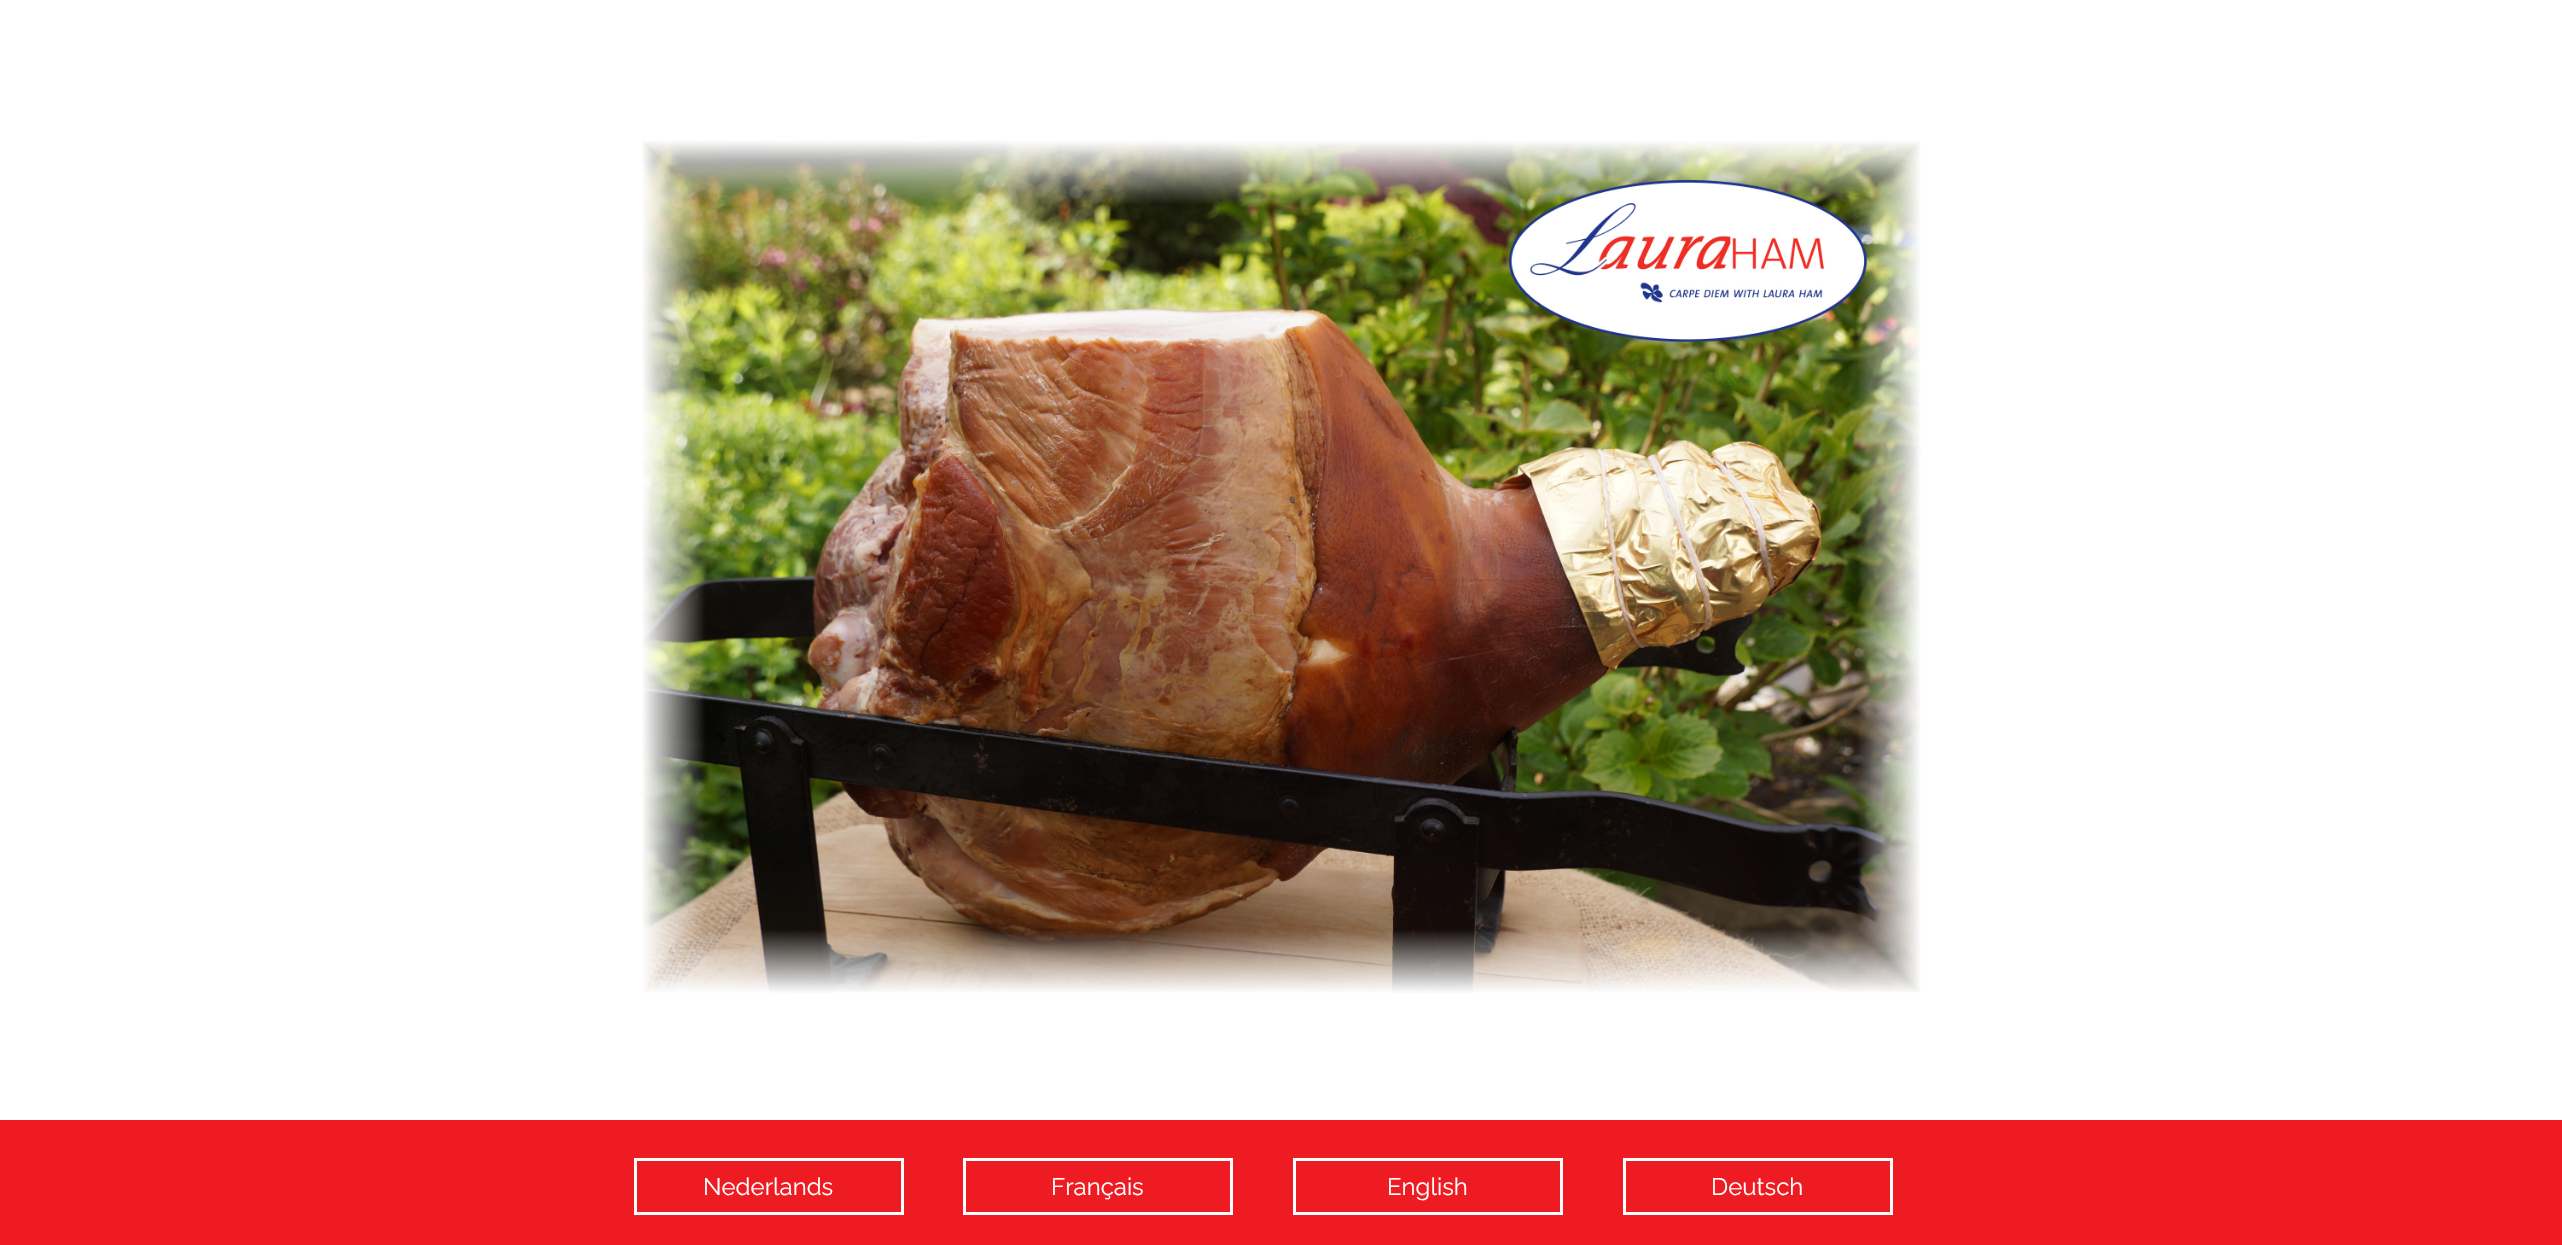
void draw(SkCanvas* canvas) {
    SkPaint paint;
    paint.setAntiAlias(true);
    auto face = [&](const char* family, int weight, float size, bool italic = false) {
        SkFontStyle style(weight, SkFontStyle::kNormal_Width,
            italic ? SkFontStyle::kItalic_Slant : SkFontStyle::kUpright_Slant);
        SkFont result(fontMgr->matchFamilyStyle(family, style), size);
        result.setSubpixel(true);
        return result;
    };
    auto write = [&](const char* s, float x, float y, const SkFont& font, SkColor color) {
        SkPaint ink(SkColor4f::FromColor(color));
        ink.setAntiAlias(true);
        canvas->drawString(s, x, y, font, ink);
    };
    auto block = [&](float x, float y, float w, float h, SkColor color) {
        SkPaint ink(SkColor4f::FromColor(color));
        ink.setAntiAlias(true);
        canvas->drawRect(SkRect::MakeXYWH(x, y, w, h), ink);
    };
    auto paste = [&](const char* path, float x, float y, float w, float h) {
        auto image = SkImages::DeferredFromEncodedData(SkData::MakeFromFileName(path));
        canvas->drawImageRect(image, SkRect::MakeXYWH(x, y, w, h), SkSamplingOptions());
    };
    canvas->clear(SK_ColorWHITE);
    paste("pic1.png", 642, 140, 1279, 853);
    block(0, 1120, 2562, 125, SkColorSetRGB(238, 27, 34));
    paint.setStyle(SkPaint::kStroke_Style);
    paint.setStrokeWidth(3);
    paint.setColor(SK_ColorWHITE);
    canvas->drawRect(SkRect::MakeXYWH(635.5f, 1159.5f, 267, 54), paint);
    auto kFont1 = face("Raleway", 400, 24);
    write("Nederlands", 703, 1195, kFont1, SK_ColorWHITE);
    canvas->drawRect(SkRect::MakeXYWH(964.5f, 1159.5f, 267, 54), paint);
    write("Français", 1051, 1195, kFont1, SK_ColorWHITE);
    canvas->drawRect(SkRect::MakeXYWH(1294.5f, 1159.5f, 267, 54), paint);
    write("English", 1387, 1195, kFont1, SK_ColorWHITE);
    canvas->drawRect(SkRect::MakeXYWH(1624.5f, 1159.5f, 267, 54), paint);
    write("Deutsch", 1711, 1195, kFont1, SK_ColorWHITE);
}
